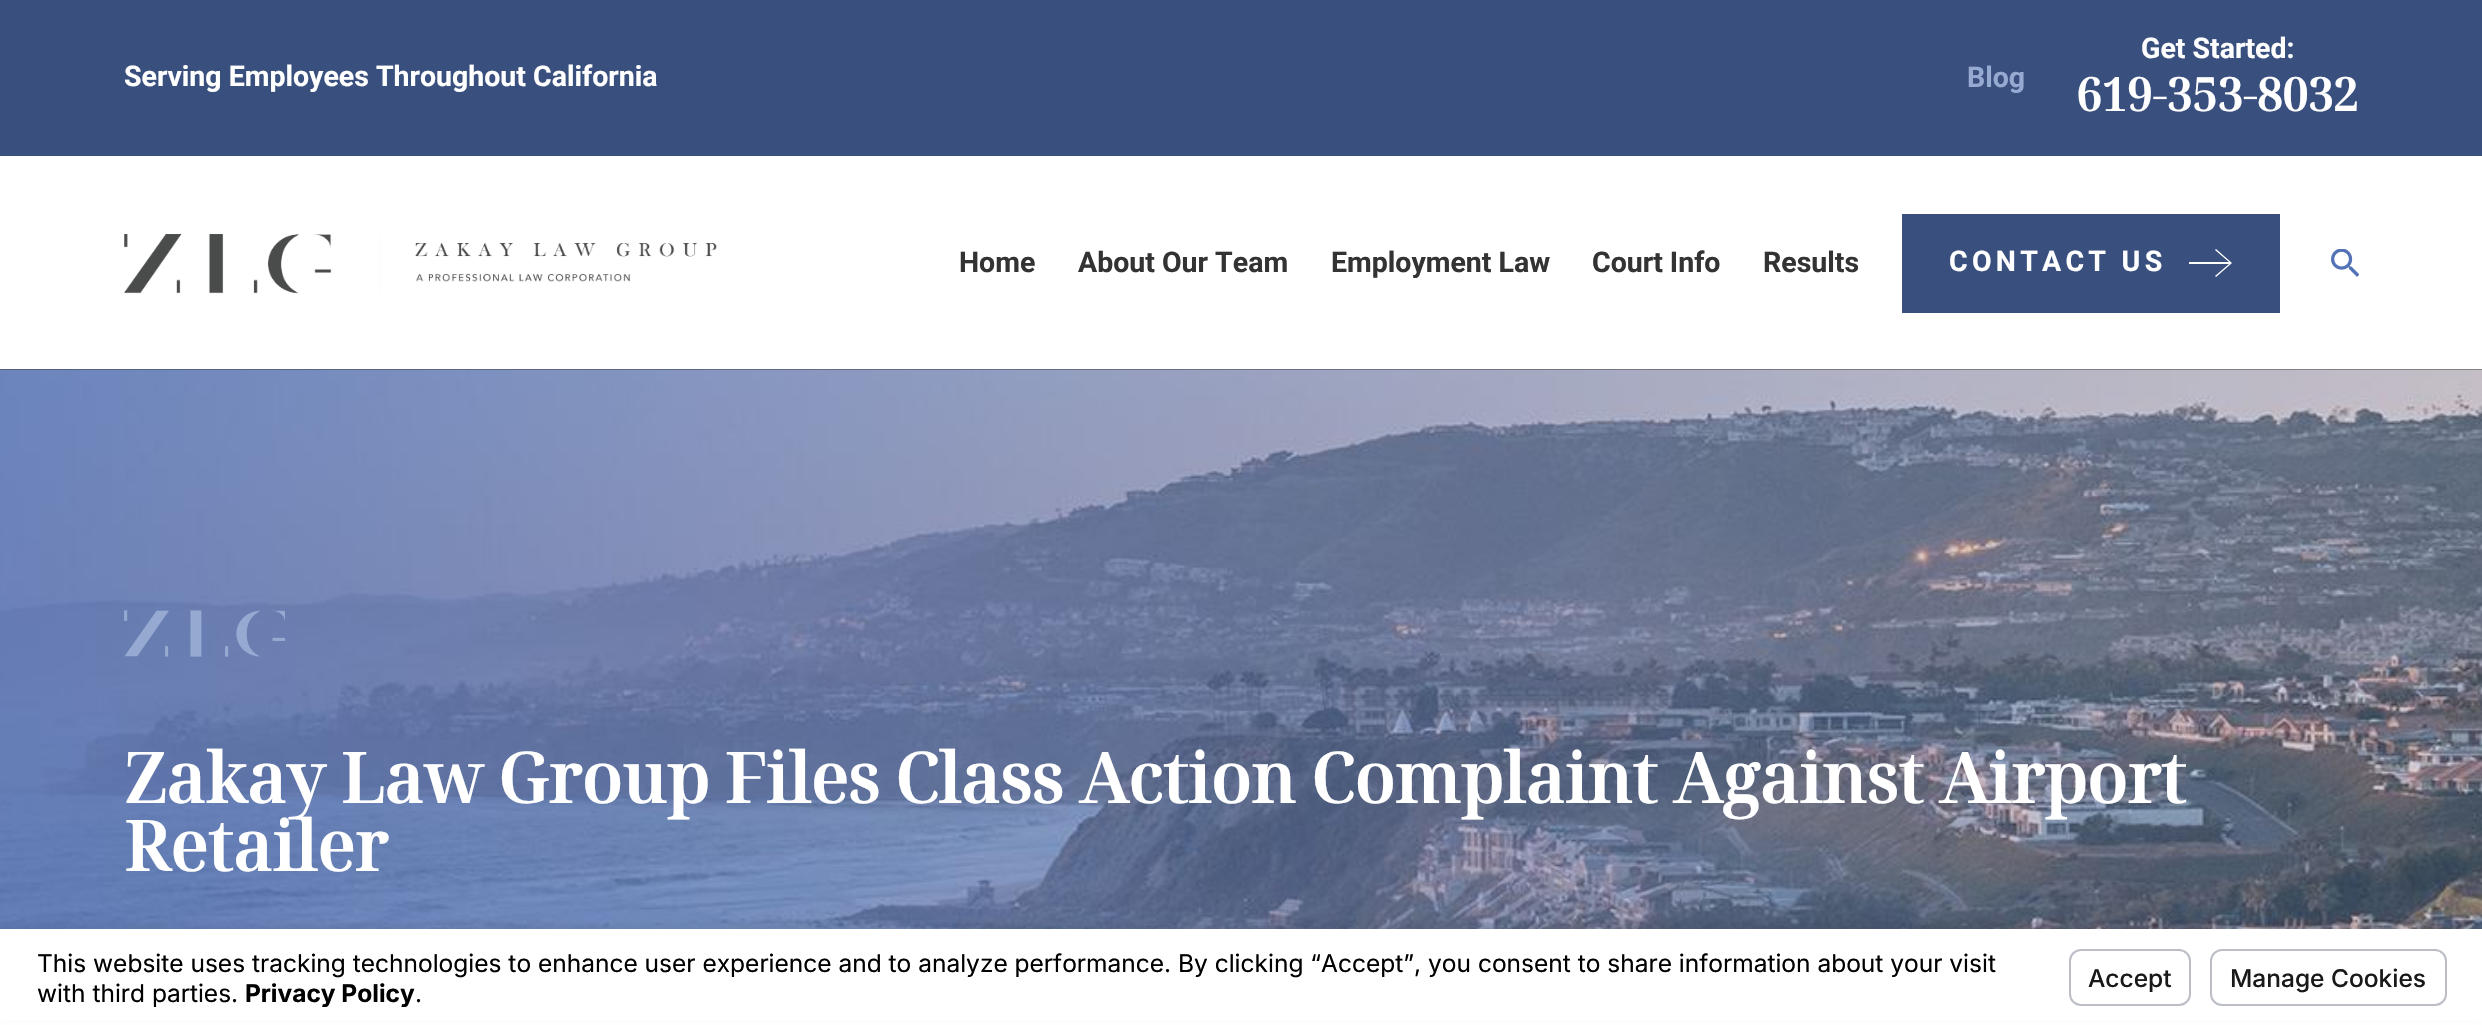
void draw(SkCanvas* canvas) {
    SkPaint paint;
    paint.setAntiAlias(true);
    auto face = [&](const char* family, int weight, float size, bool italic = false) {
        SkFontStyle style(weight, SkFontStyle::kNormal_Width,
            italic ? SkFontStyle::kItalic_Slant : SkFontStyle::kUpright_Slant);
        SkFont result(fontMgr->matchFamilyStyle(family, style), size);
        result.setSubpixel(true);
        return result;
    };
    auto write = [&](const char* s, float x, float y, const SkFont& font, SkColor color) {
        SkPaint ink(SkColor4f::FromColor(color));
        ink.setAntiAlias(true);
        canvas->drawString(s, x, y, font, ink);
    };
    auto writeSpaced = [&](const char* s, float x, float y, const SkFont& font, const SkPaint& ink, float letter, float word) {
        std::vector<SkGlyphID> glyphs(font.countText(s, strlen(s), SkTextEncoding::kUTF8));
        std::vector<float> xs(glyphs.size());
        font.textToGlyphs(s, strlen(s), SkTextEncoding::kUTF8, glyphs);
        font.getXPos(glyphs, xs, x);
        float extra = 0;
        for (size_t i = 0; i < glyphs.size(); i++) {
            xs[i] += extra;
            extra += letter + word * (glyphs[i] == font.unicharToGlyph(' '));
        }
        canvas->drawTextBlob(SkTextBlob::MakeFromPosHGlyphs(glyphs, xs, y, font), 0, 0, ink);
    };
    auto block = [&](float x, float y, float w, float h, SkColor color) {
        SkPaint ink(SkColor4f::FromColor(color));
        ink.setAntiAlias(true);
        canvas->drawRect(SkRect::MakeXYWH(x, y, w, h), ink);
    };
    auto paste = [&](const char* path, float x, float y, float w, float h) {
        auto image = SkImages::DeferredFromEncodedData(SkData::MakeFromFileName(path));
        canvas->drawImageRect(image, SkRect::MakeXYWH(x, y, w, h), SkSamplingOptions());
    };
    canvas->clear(SK_ColorWHITE);
    block(0, 0, 2482, 156, SkColorSetRGB(57, 79, 126));
    auto kFont1 = face("Roboto", 700, 28.5f);
    write("Serving Employees Throughout California", 124, 86, kFont1, SK_ColorWHITE);
    write("Blog", 1967, 87, kFont1, SkColorSetRGB(149, 169, 209));
    write("Get Started:", 2141, 58, kFont1, SK_ColorWHITE);
    auto kFont2 = face("Noto Serif Display", 700, 45.5f);
    write("619-353-8032", 2076, 111, kFont2, SK_ColorWHITE);
    paste("pic1.png", 124, 234, 593, 60);
    write("Home", 959, 272, kFont1, SkColorSetRGB(51, 51, 51));
    write("About Our Team", 1078, 272, kFont1, SkColorSetRGB(51, 51, 51));
    write("Employment Law", 1331, 272, kFont1, SkColorSetRGB(51, 51, 51));
    write("Court Info", 1592, 272, kFont1, SkColorSetRGB(51, 51, 51));
    write("Results", 1763, 272, kFont1, SkColorSetRGB(51, 51, 51));
    block(1902, 214, 378, 99, SkColorSetRGB(57, 79, 126));
    paint.setColor(SK_ColorWHITE);
    writeSpaced("CONTACT US", 1949, 271, kFont1, paint, 4.25f, 0);
    canvas->drawPath(SkPathBuilder().moveTo(2215, 276).lineTo(2216, 277).lineTo(2232, 263).lineTo(2216, 249).lineTo(2215, 250).lineTo(2229, 262).lineTo(2189, 262).lineTo(2189, 264).lineTo(2229, 264).close().detach(), paint);
    paste("pic2.png", 2331, 249, 28, 28);
    block(0, 369, 2482, 1, SkColorSetRGB(51, 51, 51));
    paste("pic3.png", 0, 369, 2482, 560);
    paste("pic4.png", 124, 610, 161, 47);
    auto kFont3 = face("Noto Serif Display", 700, 68.75f);
    write("Zakay Law Group Files Class Action Complaint Against Airport", 124, 803, kFont3, SK_ColorWHITE);
    write("Retailer", 124, 871, kFont3, SK_ColorWHITE);
    paint.setColor(SkColorSetARGB(13, 0, 0, 0));
    paint.setMaskFilter(SkMaskFilter::MakeBlur(kNormal_SkBlurStyle, 2.5f));
    canvas->drawRect(SkRect::MakeXYWH(0, 922, 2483, 97), paint);
    paint.setMaskFilter(nullptr);
    block(0, 929, 2482, 92, SK_ColorWHITE);
    auto kFont4 = face("Inter", 400, 24.5f);
    write("This website uses tracking technologies to enhance user experience and to analyze performance. By clicking “Accept”, you consent to share information about your visit", 37, 972, kFont4, SK_ColorBLACK);
    write("with third parties.", 37, 1002, kFont4, SK_ColorBLACK);
    auto kFont5 = face("Inter", 700, 24.5f);
    write("Privacy Policy", 245, 1002, kFont5, SK_ColorBLACK);
    write(".", 415, 1002, kFont4, SK_ColorBLACK);
    paint.setStyle(SkPaint::kStroke_Style);
    paint.setStrokeWidth(2);
    paint.setColor(SkColorSetRGB(188, 190, 199));
    canvas->drawRoundRect(SkRect::MakeXYWH(2070, 950, 120, 55), 11, 11, paint);
    auto kFont6 = face("Inter", 500, 24.5f);
    write("Accept", 2088, 987, kFont6, SkColorSetRGB(25, 25, 25));
    canvas->drawRoundRect(SkRect::MakeXYWH(2211, 950, 235, 55), 11, 11, paint);
    write("Manage Cookies", 2230, 987, kFont6, SkColorSetRGB(25, 25, 25));
}
